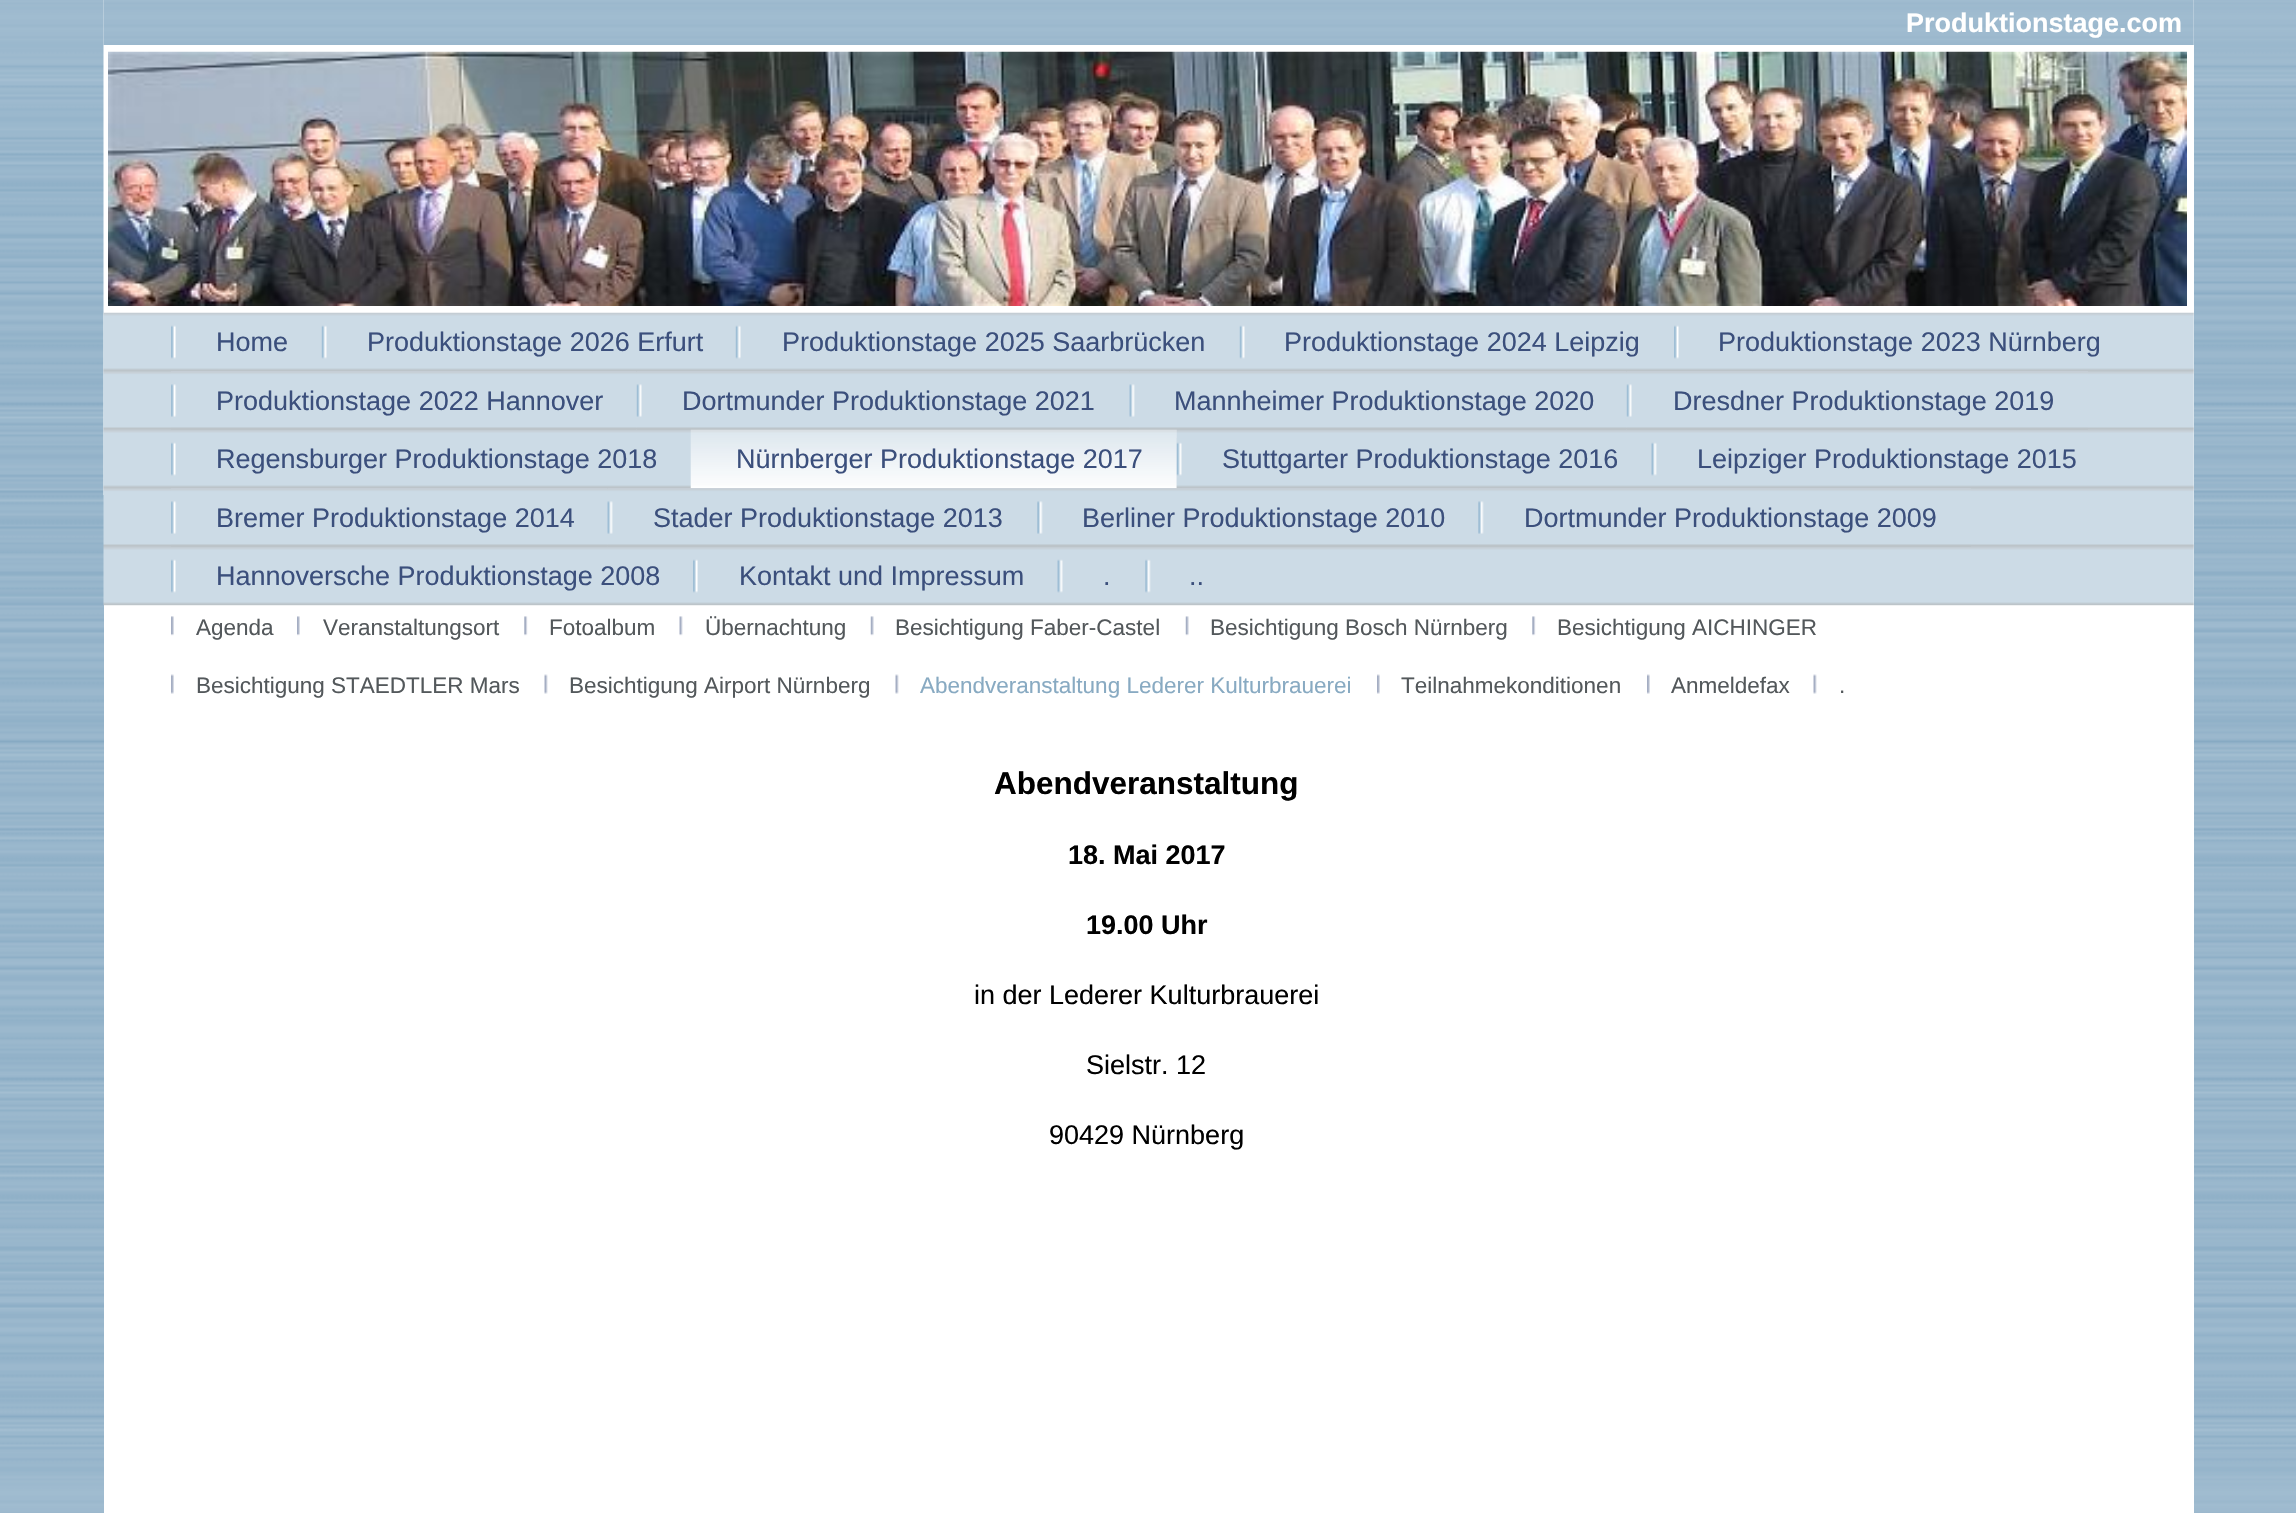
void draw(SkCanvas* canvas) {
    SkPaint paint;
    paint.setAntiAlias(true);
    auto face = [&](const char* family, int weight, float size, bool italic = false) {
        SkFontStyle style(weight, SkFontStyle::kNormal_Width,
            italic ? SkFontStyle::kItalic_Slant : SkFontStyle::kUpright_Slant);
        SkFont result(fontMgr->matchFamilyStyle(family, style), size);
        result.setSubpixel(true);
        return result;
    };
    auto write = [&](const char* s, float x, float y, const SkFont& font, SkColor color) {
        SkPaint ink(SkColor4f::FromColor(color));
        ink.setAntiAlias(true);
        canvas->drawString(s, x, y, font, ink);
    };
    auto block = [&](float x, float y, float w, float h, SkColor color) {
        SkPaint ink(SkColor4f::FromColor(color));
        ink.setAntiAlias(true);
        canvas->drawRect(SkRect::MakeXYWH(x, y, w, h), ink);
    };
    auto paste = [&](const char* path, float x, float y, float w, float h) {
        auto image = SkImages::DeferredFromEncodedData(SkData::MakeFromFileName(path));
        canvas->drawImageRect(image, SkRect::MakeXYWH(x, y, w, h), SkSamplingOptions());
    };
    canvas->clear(SK_ColorWHITE);
    paste("pic1.png", 0, 0, 2296, 1513);
    block(104, 0, 2090, 1513, SK_ColorWHITE);
    paste("pic2.png", 103, 0, 2067, 495);
    paste("pic3.png", 103, 0, 2091, 45);
    auto kFont1 = face("Liberation Sans", 700, 27);
    write("Produktionstage.com", 1906, 32, kFont1, SK_ColorWHITE);
    paste("pic4.png", 108, 51, 2079, 255);
    paste("pic5.png", 103, 312, 2091, 294);
    paste("pic6.png", 171, 325, 5, 34);
    auto kFont2 = face("Liberation Sans", 400, 27);
    write("Home", 216, 351, kFont2, SkColorSetRGB(59, 79, 124));
    paste("pic7.png", 321, 325, 6, 34);
    write("Produktionstage 2026 Erfurt", 367, 351, kFont2, SkColorSetRGB(59, 79, 124));
    paste("pic7.png", 735, 325, 6, 34);
    write("Produktionstage 2025 Saarbrücken", 782, 351, kFont2, SkColorSetRGB(59, 79, 124));
    paste("pic7.png", 1239, 325, 6, 34);
    write("Produktionstage 2024 Leipzig", 1284, 351, kFont2, SkColorSetRGB(59, 79, 124));
    paste("pic8.png", 1674, 325, 5, 34);
    write("Produktionstage 2023 Nürnberg", 1718, 351, kFont2, SkColorSetRGB(59, 79, 124));
    paste("pic9.png", 171, 371, 465, 59);
    write("Produktionstage 2022 Hannover", 216, 410, kFont2, SkColorSetRGB(59, 79, 124));
    paste("pic10.png", 636, 371, 493, 59);
    write("Dortmunder Produktionstage 2021", 682, 410, kFont2, SkColorSetRGB(59, 79, 124));
    paste("pic11.png", 1129, 371, 497, 59);
    write("Mannheimer Produktionstage 2020", 1174, 410, kFont2, SkColorSetRGB(59, 79, 124));
    paste("pic12.png", 1626, 371, 462, 59);
    write("Dresdner Produktionstage 2019", 1673, 410, kFont2, SkColorSetRGB(59, 79, 124));
    paste("pic8.png", 171, 442, 5, 34);
    write("Regensburger Produktionstage 2018", 216, 468, kFont2, SkColorSetRGB(59, 79, 124));
    paste("pic13.png", 690, 429, 487, 60);
    write("Nürnberger Produktionstage 2017", 736, 468, kFont2, SkColorSetRGB(59, 79, 124));
    paste("pic14.png", 1176, 438, 6, 50);
    write("Stuttgarter Produktionstage 2016", 1222, 468, kFont2, SkColorSetRGB(59, 79, 124));
    paste("pic15.png", 1651, 442, 6, 34);
    write("Leipziger Produktionstage 2015", 1697, 468, kFont2, SkColorSetRGB(59, 79, 124));
    paste("pic16.png", 171, 488, 436, 59);
    write("Bremer Produktionstage 2014", 216, 527, kFont2, SkColorSetRGB(59, 79, 124));
    paste("pic17.png", 607, 488, 430, 59);
    write("Stader Produktionstage 2013", 653, 527, kFont2, SkColorSetRGB(59, 79, 124));
    paste("pic18.png", 1037, 488, 441, 59);
    write("Berliner Produktionstage 2010", 1082, 527, kFont2, SkColorSetRGB(59, 79, 124));
    paste("pic19.png", 1478, 488, 493, 59);
    write("Dortmunder Produktionstage 2009", 1524, 527, kFont2, SkColorSetRGB(59, 79, 124));
    paste("pic8.png", 171, 559, 5, 34);
    write("Hannoversche Produktionstage 2008", 216, 585, kFont2, SkColorSetRGB(59, 79, 124));
    paste("pic6.png", 693, 559, 5, 34);
    write("Kontakt und Impressum", 739, 585, kFont2, SkColorSetRGB(59, 79, 124));
    paste("pic20.png", 1057, 559, 6, 34);
    write(".", 1103, 585, kFont2, SkColorSetRGB(59, 79, 124));
    paste("pic21.png", 1145, 559, 6, 34);
    write("..", 1189, 585, kFont2, SkColorSetRGB(59, 79, 124));
    paste("pic22.png", 171, 616, 3, 20);
    auto kFont3 = face("Liberation Sans", 400, 22.5f);
    write("Agenda", 196, 635, kFont3, SkColorSetRGB(83, 88, 91));
    paste("pic22.png", 297, 616, 3, 20);
    write("Veranstaltungsort", 323, 635, kFont3, SkColorSetRGB(83, 88, 91));
    paste("pic23.png", 524, 616, 4, 20);
    write("Fotoalbum", 549, 635, kFont3, SkColorSetRGB(83, 88, 91));
    paste("pic24.png", 679, 616, 4, 20);
    write("Übernachtung", 705, 635, kFont3, SkColorSetRGB(83, 88, 91));
    paste("pic25.png", 870, 616, 4, 20);
    write("Besichtigung Faber-Castel", 895, 635, kFont3, SkColorSetRGB(83, 88, 91));
    paste("pic25.png", 1185, 616, 4, 20);
    write("Besichtigung Bosch Nürnberg", 1210, 635, kFont3, SkColorSetRGB(83, 88, 91));
    paste("pic23.png", 1532, 616, 4, 20);
    write("Besichtigung AICHINGER", 1557, 635, kFont3, SkColorSetRGB(83, 88, 91));
    paste("pic26.png", 171, 674, 3, 20);
    write("Besichtigung STAEDTLER Mars", 196, 693, kFont3, SkColorSetRGB(83, 88, 91));
    paste("pic27.png", 544, 674, 4, 20);
    write("Besichtigung Airport Nürnberg", 569, 693, kFont3, SkColorSetRGB(83, 88, 91));
    paste("pic27.png", 895, 674, 4, 20);
    write("Abendveranstaltung Lederer Kulturbrauerei", 920, 693, kFont3, SkColorSetRGB(136, 170, 194));
    paste("pic26.png", 1377, 674, 3, 20);
    write("Teilnahmekonditionen", 1401, 693, kFont3, SkColorSetRGB(83, 88, 91));
    paste("pic26.png", 1647, 674, 3, 20);
    write("Anmeldefax", 1671, 693, kFont3, SkColorSetRGB(83, 88, 91));
    paste("pic27.png", 1813, 674, 4, 20);
    write(".", 1839, 693, kFont3, SkColorSetRGB(83, 88, 91));
    auto kFont4 = face("Liberation Sans", 700, 31.5f);
    write("Abendveranstaltung", 994, 794, kFont4, SK_ColorBLACK);
    write("18. Mai 2017", 1068, 864, kFont1, SK_ColorBLACK);
    write("19.00 Uhr", 1086, 934, kFont1, SK_ColorBLACK);
    write("in der Lederer Kulturbrauerei", 974, 1004, kFont2, SK_ColorBLACK);
    write("Sielstr. 12", 1086, 1074, kFont2, SK_ColorBLACK);
    write("90429 Nürnberg", 1049, 1144, kFont2, SK_ColorBLACK);
}
